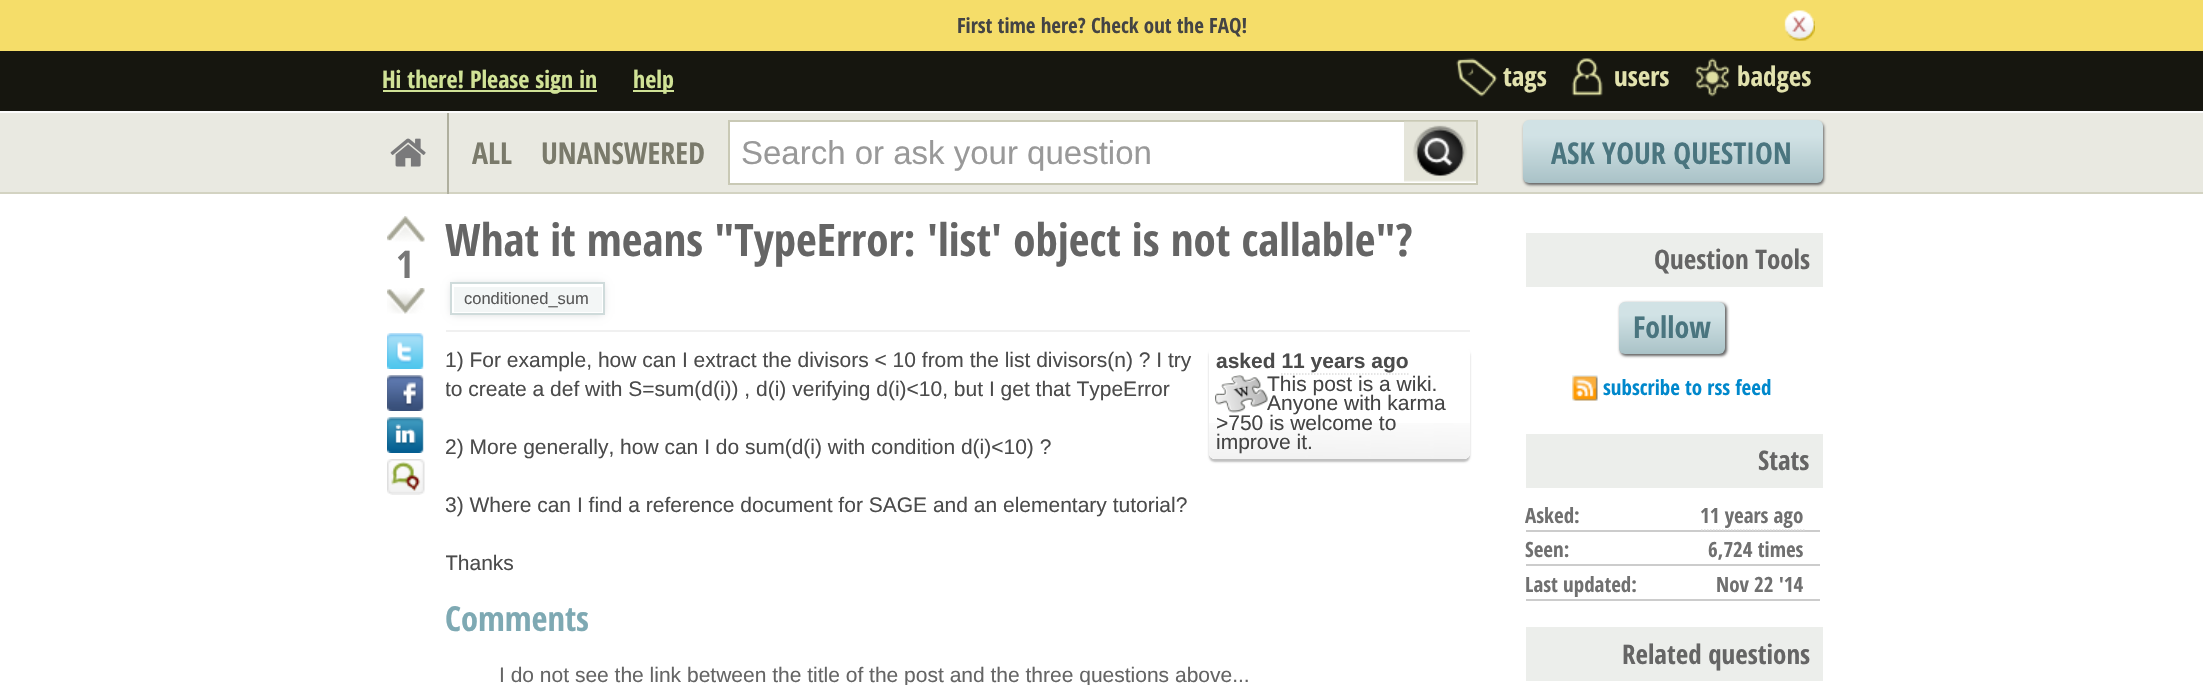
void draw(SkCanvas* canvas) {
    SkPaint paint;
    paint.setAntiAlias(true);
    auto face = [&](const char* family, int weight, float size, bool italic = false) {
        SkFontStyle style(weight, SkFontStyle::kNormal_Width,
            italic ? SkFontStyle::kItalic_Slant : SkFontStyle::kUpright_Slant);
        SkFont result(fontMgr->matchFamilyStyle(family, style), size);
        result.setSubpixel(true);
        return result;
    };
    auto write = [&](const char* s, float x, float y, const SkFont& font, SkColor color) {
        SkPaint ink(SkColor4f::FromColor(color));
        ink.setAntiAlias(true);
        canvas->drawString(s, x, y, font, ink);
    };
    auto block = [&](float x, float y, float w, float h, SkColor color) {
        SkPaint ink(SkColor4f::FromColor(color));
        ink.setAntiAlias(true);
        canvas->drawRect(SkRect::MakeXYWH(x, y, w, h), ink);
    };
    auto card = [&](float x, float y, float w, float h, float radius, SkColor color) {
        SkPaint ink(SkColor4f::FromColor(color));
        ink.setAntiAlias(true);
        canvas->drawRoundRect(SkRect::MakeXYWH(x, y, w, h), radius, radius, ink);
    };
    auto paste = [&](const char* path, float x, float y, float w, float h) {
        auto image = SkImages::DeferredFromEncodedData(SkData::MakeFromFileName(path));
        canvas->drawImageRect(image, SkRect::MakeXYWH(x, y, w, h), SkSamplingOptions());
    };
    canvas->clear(SK_ColorWHITE);
    block(0, 0, 2203, 51, SkColorSetRGB(245, 221, 105));
    auto kFont1 = face("Open Sans Condensed", 700, 21);
    write("First time here? Check out the FAQ!", 957, 33, kFont1, SkColorSetRGB(68, 68, 68));
    paste("pic1.png", 1784, 10, 31, 31);
    block(0, 51, 2203, 60, SkColorSetRGB(22, 22, 15));
    block(383, 90, 214, 2, SkColorSetRGB(208, 226, 150));
    auto kFont2 = face("Open Sans Condensed", 700, 24);
    write("Hi there! Please sign in", 382, 88, kFont2, SkColorSetRGB(208, 226, 150));
    block(633, 90, 41, 2, SkColorSetRGB(208, 226, 150));
    write("help", 633, 88, kFont2, SkColorSetRGB(208, 226, 150));
    paste("pic2.png", 1456, 58, 42, 39);
    auto kFont3 = face("Open Sans Condensed", 700, 27);
    write("tags", 1503, 86, kFont3, SkColorSetRGB(226, 226, 174));
    paste("pic3.png", 1571, 58, 32, 39);
    write("users", 1614, 86, kFont3, SkColorSetRGB(226, 226, 174));
    paste("pic4.png", 1694, 58, 36, 39);
    write("badges", 1737, 86, kFont3, SkColorSetRGB(226, 226, 174));
    block(0, 113, 2203, 79, SkColorSetRGB(233, 233, 225));
    block(0, 111, 2203, 2, SkColorSetRGB(252, 252, 252));
    block(0, 192, 2203, 2, SkColorSetRGB(211, 211, 194));
    block(447, 113, 2, 81, SkColorSetRGB(175, 175, 158));
    paste("pic5.png", 390, 138, 36, 29);
    auto kFont4 = face("Open Sans Condensed", 700, 30);
    write("ALL", 472, 164, kFont4, SkColorSetRGB(122, 122, 107));
    write("UNANSWERED", 541, 164, kFont4, SkColorSetRGB(122, 122, 107));
    paint.setColor(SK_ColorWHITE);
    canvas->drawRect(SkRect::MakeXYWH(729, 121, 748, 63), paint);
    paint.setStyle(SkPaint::kStroke_Style);
    paint.setStrokeWidth(2);
    paint.setColor(SkColorSetRGB(201, 201, 181));
    canvas->drawRect(SkRect::MakeXYWH(729, 121, 748, 63), paint);
    auto kFont5 = face("Liberation Sans", 400, 33);
    write("Search or ask your question", 741, 164, kFont5, SkColorSetRGB(153, 153, 153));
    paste("pic6.png", 1404, 121, 72, 61);
    paint.setStyle(SkPaint::kFill_Style);
    paint.setColor(SkColorSetRGB(99, 99, 99));
    paint.setMaskFilter(SkMaskFilter::MakeBlur(kNormal_SkBlurStyle, 1.5f));
    canvas->drawRoundRect(SkRect::MakeXYWH(1524, 122, 300, 63), 6, 6, paint);
    paint.setMaskFilter(nullptr);
    {
        const SkColor colors[] = {SkColorSetRGB(209, 226, 229), SkColorSetRGB(209, 226, 229), SkColorSetRGB(169, 194, 199)};
        const float stops[] = {0, 0.25f, 1};
        const SkPoint ends[] = {{1673, 120}, {1673, 183}};
        paint.setShader(SkGradientShader::MakeLinear(ends, colors, stops, 3, SkTileMode::kClamp));
        paint.setAlpha(255);
    }
    canvas->drawRoundRect(SkRect::MakeXYWH(1523, 120, 300, 63), 6, 6, paint);
    write("ASK YOUR QUESTION", 1551, 164, kFont4, SkColorSetRGB(74, 117, 127));
    paste("pic7.png", 387, 216, 38, 26);
    auto kFont6 = face("Open Sans Condensed", 700, 38);
    write("1", 396, 278, kFont6, SkColorSetRGB(119, 119, 119));
    paste("pic8.png", 387, 288, 38, 26);
    paste("pic9.png", 387, 333, 37, 36);
    paste("pic10.png", 387, 375, 37, 36);
    paste("pic11.png", 387, 417, 37, 36);
    paste("pic12.png", 387, 459, 38, 36);
    auto kFont7 = face("Open Sans Condensed", 700, 45);
    write("What it means \"TypeError: 'list' object is not callable\"?", 445, 256, kFont7, SkColorSetRGB(101, 101, 101));
    canvas->save();
    canvas->clipPath(SkPathBuilder(SkPathFillType::kEvenOdd).moveTo(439, 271).lineTo(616, 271).lineTo(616, 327).lineTo(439, 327).close().moveTo(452, 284).lineTo(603, 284).lineTo(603, 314).lineTo(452, 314).close().detach(), true);
    paint.setShader(nullptr);
    paint.setColor(SkColorSetRGB(211, 214, 215));
    paint.setMaskFilter(SkMaskFilter::MakeBlur(kNormal_SkBlurStyle, 4));
    canvas->drawRect(SkRect::MakeXYWH(452, 284, 151, 30), paint);
    paint.setMaskFilter(nullptr);
    canvas->restore();
    block(454, 287, 148, 25, SkColorSetRGB(243, 246, 246));
    block(602, 313, 1, 1, SK_ColorWHITE);
    block(452, 313, 2, 1, SK_ColorWHITE);
    paint.setStyle(SkPaint::kStroke_Style);
    paint.setColor(SkColorSetRGB(207, 219, 219));
    canvas->drawRect(SkRect::MakeXYWH(451, 283, 153, 31), paint);
    auto kFont8 = face("Liberation Sans", 400, 16.5f);
    write("conditioned_sum", 464, 304, kFont8, SkColorSetRGB(88, 88, 88));
    block(446, 330, 1024, 2, SkColorSetRGB(240, 240, 240));
    auto kFont9 = face("Liberation Sans", 400, 21);
    write("1) For example, how can I extract the divisors < 10 from the list divisors(n) ? I try", 445, 367, kFont9, SkColorSetRGB(75, 75, 75));
    canvas->save();
    canvas->clipRect(SkRect::MakeXYWH(446, 332, 1024, 255));
    write("to create a def with S=sum(d(i)) , d(i) verifying d(i)<10, but I get that TypeError", 445, 396, kFont9, SkColorSetRGB(75, 75, 75));
    canvas->restore();
    write("2) More generally, how can I do sum(d(i) with condition d(i)<10) ?", 445, 454, kFont9, SkColorSetRGB(75, 75, 75));
    canvas->save();
    canvas->clipRect(SkRect::MakeXYWH(446, 332, 1024, 255));
    write("3) Where can I find a reference document for SAGE and an elementary tutorial?", 445, 512, kFont9, SkColorSetRGB(75, 75, 75));
    write("Thanks", 445, 570, kFont9, SkColorSetRGB(75, 75, 75));
    canvas->restore();
    canvas->save();
    canvas->clipPath(SkPathBuilder(SkPathFillType::kEvenOdd).moveTo(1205, 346).lineTo(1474, 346).lineTo(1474, 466).lineTo(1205, 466).close().moveTo(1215, 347).lineTo(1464, 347).cubicTo(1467.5f, 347, 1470, 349.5f, 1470, 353).lineTo(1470, 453).cubicTo(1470, 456.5f, 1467.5f, 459, 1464, 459).lineTo(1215, 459).cubicTo(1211.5f, 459, 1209, 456.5f, 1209, 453).lineTo(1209, 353).cubicTo(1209, 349.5f, 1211.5f, 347, 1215, 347).close().detach(), true);
    paint.setStyle(SkPaint::kFill_Style);
    paint.setColor(SkColorSetRGB(191, 191, 191));
    paint.setMaskFilter(SkMaskFilter::MakeBlur(kNormal_SkBlurStyle, 1));
    canvas->drawRoundRect(SkRect::MakeXYWH(1209, 350, 261, 112), 6, 6, paint);
    paint.setMaskFilter(nullptr);
    canvas->restore();
    card(1209, 347, 261, 112, 6, SK_ColorWHITE);
    paste("pic13.png", 1209, 423, 261, 36);
    auto kFont10 = face("Liberation Sans", 700, 21);
    write("asked 11 years ago", 1216, 368, kFont10, SkColorSetRGB(75, 75, 75));
    paint.setStyle(SkPaint::kStroke_Style);
    paint.setStrokeWidth(1.5f);
    paint.setColor(SkColorSetRGB(221, 221, 221));
    paint.setPathEffect(SkDashPathEffect::Make({{1.5f, 1.5f}}, 0));
    canvas->drawPath(SkPathBuilder().moveTo(1281, 374).lineTo(1408.5f, 374).detach(), paint);
    paint.setPathEffect(nullptr);
    paste("pic14.png", 1215, 375, 53, 38);
    write("This post is a wiki.", 1267, 391, kFont9, SkColorSetRGB(68, 68, 68));
    write("Anyone with karma", 1267, 410, kFont9, SkColorSetRGB(68, 68, 68));
    write(">750 is welcome to", 1216, 430, kFont9, SkColorSetRGB(68, 68, 68));
    write("improve it.", 1216, 449, kFont9, SkColorSetRGB(68, 68, 68));
    auto kFont11 = face("Open Sans Condensed", 700, 34.5f);
    write("Comments", 445, 631, kFont11, SkColorSetRGB(126, 169, 179));
    write("I do not see the link between the title of the post and the three questions above...", 499, 682, kFont9, SkColorSetRGB(101, 101, 101));
    block(1526, 233, 297, 54, SkColorSetRGB(236, 238, 235));
    write("Question Tools", 1654, 269, kFont3, SkColorSetRGB(101, 101, 101));
    paint.setStyle(SkPaint::kFill_Style);
    paint.setColor(SkColorSetRGB(99, 99, 99));
    paint.setMaskFilter(SkMaskFilter::MakeBlur(kNormal_SkBlurStyle, 1.5f));
    canvas->drawRoundRect(SkRect::MakeXYWH(1620, 303, 107, 53), 6, 6, paint);
    paint.setMaskFilter(nullptr);
    {
        const SkColor colors[] = {SkColorSetRGB(209, 226, 229), SkColorSetRGB(209, 226, 229), SkColorSetRGB(169, 194, 199)};
        const float stops[] = {0, 0.25f, 1};
        const SkPoint ends[] = {{1672, 302}, {1672, 354}};
        paint.setShader(SkGradientShader::MakeLinear(ends, colors, stops, 3, SkTileMode::kClamp));
        paint.setAlpha(255);
    }
    canvas->drawRoundRect(SkRect::MakeXYWH(1619, 302, 106, 52), 6, 6, paint);
    write("Follow", 1633, 338, kFont4, SkColorSetRGB(74, 117, 127));
    paste("pic15.png", 1572, 375, 26, 26);
    write("subscribe to rss feed", 1603, 395, kFont1, SkColorSetRGB(0, 136, 204));
    block(1526, 434, 297, 54, SkColorSetRGB(236, 238, 235));
    write("Stats", 1758, 470, kFont3, SkColorSetRGB(101, 101, 101));
    block(1526, 530, 294, 2, SkColorSetRGB(204, 204, 204));
    write("Asked:", 1525, 523, kFont1, SkColorSetRGB(112, 112, 112));
    write("11 years ago", 1700, 523, kFont1, SkColorSetRGB(112, 112, 112));
    paint.setStyle(SkPaint::kStroke_Style);
    paint.setShader(nullptr);
    paint.setColor(SkColorSetRGB(221, 221, 221));
    paint.setPathEffect(SkDashPathEffect::Make({{1.5f, 1.5f}}, 0));
    canvas->drawPath(SkPathBuilder().moveTo(1701, 530).lineTo(1804.5f, 530).detach(), paint);
    paint.setPathEffect(nullptr);
    block(1526, 564, 294, 2, SkColorSetRGB(204, 204, 204));
    write("Seen:", 1525, 557, kFont1, SkColorSetRGB(112, 112, 112));
    write("6,724 times", 1708, 557, kFont1, SkColorSetRGB(112, 112, 112));
    block(1526, 599, 294, 2, SkColorSetRGB(204, 204, 204));
    write("Last updated:", 1525, 592, kFont1, SkColorSetRGB(112, 112, 112));
    write("Nov 22 '14", 1716, 592, kFont1, SkColorSetRGB(112, 112, 112));
    block(1526, 627, 297, 54, SkColorSetRGB(236, 238, 235));
    write("Related questions", 1622, 664, kFont3, SkColorSetRGB(101, 101, 101));
}
